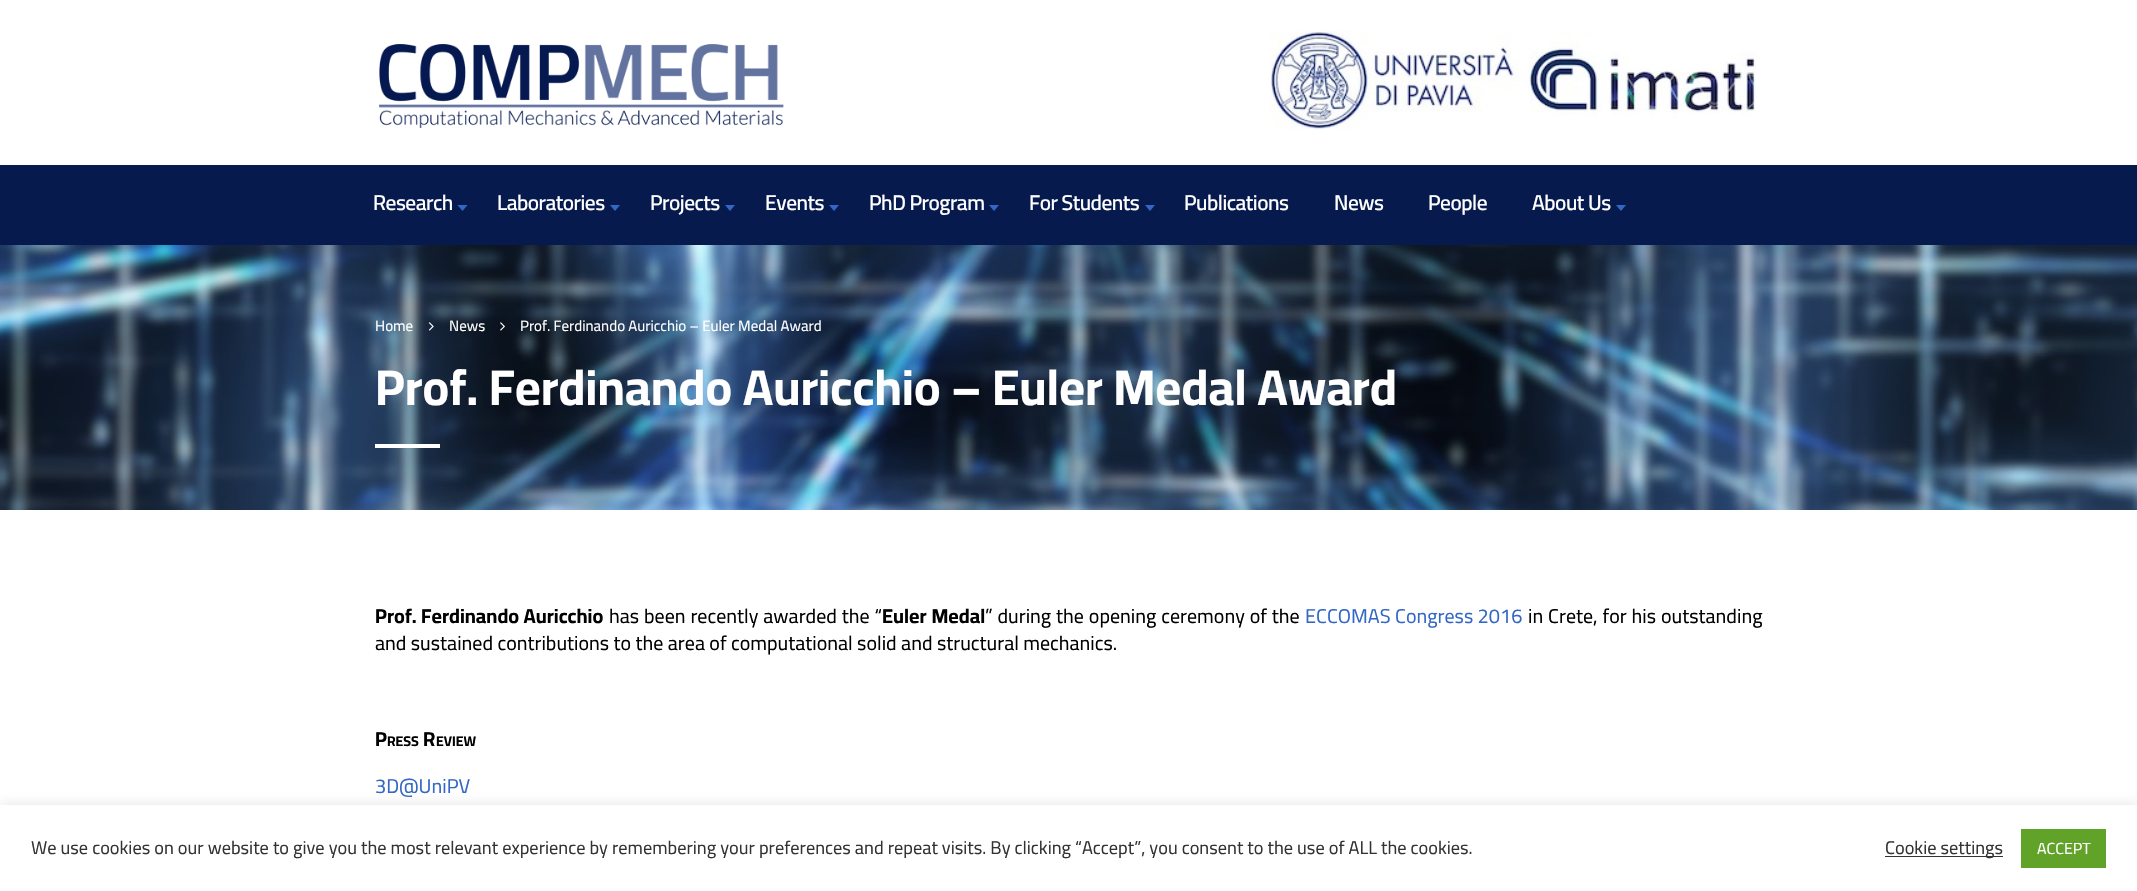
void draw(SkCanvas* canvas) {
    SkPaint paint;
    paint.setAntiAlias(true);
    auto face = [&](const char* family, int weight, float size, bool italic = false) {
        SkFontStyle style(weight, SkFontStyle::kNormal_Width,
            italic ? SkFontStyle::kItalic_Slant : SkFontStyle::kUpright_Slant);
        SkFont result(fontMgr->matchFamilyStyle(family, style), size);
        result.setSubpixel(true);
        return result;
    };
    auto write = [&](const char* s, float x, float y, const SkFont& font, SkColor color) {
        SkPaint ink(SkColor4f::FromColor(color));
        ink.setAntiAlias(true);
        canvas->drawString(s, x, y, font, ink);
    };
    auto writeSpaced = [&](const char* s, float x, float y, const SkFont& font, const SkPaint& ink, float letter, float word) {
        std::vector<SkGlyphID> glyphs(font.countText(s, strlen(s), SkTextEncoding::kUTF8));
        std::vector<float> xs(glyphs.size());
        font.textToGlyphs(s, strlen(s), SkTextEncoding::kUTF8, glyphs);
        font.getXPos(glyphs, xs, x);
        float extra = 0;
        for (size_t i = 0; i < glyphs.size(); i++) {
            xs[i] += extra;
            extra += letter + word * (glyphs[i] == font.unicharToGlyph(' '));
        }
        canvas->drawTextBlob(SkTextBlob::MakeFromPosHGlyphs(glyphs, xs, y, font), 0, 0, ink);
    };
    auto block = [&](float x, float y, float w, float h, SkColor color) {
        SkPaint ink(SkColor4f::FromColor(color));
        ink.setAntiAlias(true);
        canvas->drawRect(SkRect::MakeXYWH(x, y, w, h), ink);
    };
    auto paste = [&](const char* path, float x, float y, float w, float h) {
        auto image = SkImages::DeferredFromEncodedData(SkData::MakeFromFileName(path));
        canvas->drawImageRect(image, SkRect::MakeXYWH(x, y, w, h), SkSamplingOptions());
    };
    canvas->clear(SK_ColorWHITE);
    paste("pic1.png", 379, 44, 405, 84);
    paste("pic2.png", 1270, 31, 486, 98);
    block(0, 165, 2137, 80, SkColorSetRGB(6, 26, 78));
    auto kFont1 = face("Cairo", 600, 21.25f);
    paint.setColor(SK_ColorWHITE);
    writeSpaced("Research", 373, 210, kFont1, paint, -0.5f, 0);
    paint.setColor(SkColorSetRGB(51, 103, 197));
    canvas->drawPath(SkPathBuilder().moveTo(457.5f, 205).lineTo(467.5f, 205).lineTo(462.5f, 211).close().detach(), paint);
    paint.setColor(SK_ColorWHITE);
    writeSpaced("Laboratories", 497, 210, kFont1, paint, -0.5f, 0);
    paint.setColor(SkColorSetRGB(51, 103, 197));
    canvas->drawPath(SkPathBuilder().moveTo(610, 205).lineTo(620, 205).lineTo(615, 211).close().detach(), paint);
    paint.setColor(SK_ColorWHITE);
    writeSpaced("Projects", 650, 210, kFont1, paint, -0.5f, 0);
    paint.setColor(SkColorSetRGB(51, 103, 197));
    canvas->drawPath(SkPathBuilder().moveTo(725, 205).lineTo(735, 205).lineTo(730, 211).close().detach(), paint);
    paint.setColor(SK_ColorWHITE);
    writeSpaced("Events", 765, 210, kFont1, paint, -0.5f, 0);
    paint.setColor(SkColorSetRGB(51, 103, 197));
    canvas->drawPath(SkPathBuilder().moveTo(829, 205).lineTo(839, 205).lineTo(834, 211).close().detach(), paint);
    paint.setColor(SK_ColorWHITE);
    writeSpaced("PhD Program", 869, 210, kFont1, paint, -0.5f, 0);
    paint.setColor(SkColorSetRGB(51, 103, 197));
    canvas->drawPath(SkPathBuilder().moveTo(989, 205).lineTo(999, 205).lineTo(994, 211).close().detach(), paint);
    paint.setColor(SK_ColorWHITE);
    writeSpaced("For Students", 1029, 210, kFont1, paint, -0.5f, 0);
    paint.setColor(SkColorSetRGB(51, 103, 197));
    canvas->drawPath(SkPathBuilder().moveTo(1145, 205).lineTo(1155, 205).lineTo(1150, 211).close().detach(), paint);
    paint.setColor(SK_ColorWHITE);
    writeSpaced("Publications", 1184, 210, kFont1, paint, -0.5f, 0);
    writeSpaced("News", 1334, 210, kFont1, paint, -0.5f, 0);
    writeSpaced("People", 1428, 210, kFont1, paint, -0.5f, 0);
    writeSpaced("About Us", 1532, 210, kFont1, paint, -0.5f, 0);
    paint.setColor(SkColorSetRGB(51, 103, 197));
    canvas->drawPath(SkPathBuilder().moveTo(1616, 205).lineTo(1626, 205).lineTo(1621, 211).close().detach(), paint);
    paste("pic3.png", 0, 245, 2137, 265);
    auto kFont2 = face("Cairo", 400, 15);
    write("Home", 375, 331, kFont2, SK_ColorWHITE);
    paste("pic4.png", 428, 322, 6, 9);
    write("News", 449, 331, kFont2, SK_ColorWHITE);
    paste("pic5.png", 500, 322, 5, 9);
    write("Prof. Ferdinando Auricchio – Euler Medal Award", 520, 331, kFont2, SK_ColorWHITE);
    auto kFont3 = face("Cairo", 700, 50);
    paint.setColor(SK_ColorWHITE);
    writeSpaced("Prof. Ferdinando Auricchio – Euler Medal Award", 375, 405, kFont3, paint, -0.2f, 0);
    block(375, 444, 65, 4, SK_ColorWHITE);
    auto kFont4 = face("Cairo", 700, 20);
    write("Prof. Ferdinando Auricchio", 375, 623, kFont4, SK_ColorBLACK);
    auto kFont5 = face("Cairo", 400, 20);
    paint.setColor(SK_ColorBLACK);
    writeSpaced("has been recently awarded the “", 609, 623, kFont5, paint, 0, 0.5f);
    writeSpaced("Euler Medal", 882, 623, kFont4, paint, 0, 0.5f);
    writeSpaced("” during the opening ceremony of the", 985, 623, kFont5, paint, 0, 0.5f);
    write("ECCOMAS Congress 2016", 1305, 623, kFont5, SkColorSetRGB(51, 103, 197));
    writeSpaced("in Crete, for his outstanding", 1528, 623, kFont5, paint, 0, 0.5f);
    write("and sustained contributions to the area of computational solid and structural mechanics.", 375, 650, kFont5, SK_ColorBLACK);
    write("P", 375, 746, kFont4, SK_ColorBLACK);
    auto kFont6 = face("Cairo", 700, 14);
    write("RESS", 387, 746, kFont6, SK_ColorBLACK);
    write("R", 423, 746, kFont4, SK_ColorBLACK);
    write("EVIEW", 436, 746, kFont6, SK_ColorBLACK);
    write("3D@UniPV", 375, 793, kFont5, SkColorSetRGB(51, 103, 197));
    paint.setColor(SkColorSetARGB(77, 172, 171, 171));
    paint.setMaskFilter(SkMaskFilter::MakeBlur(kNormal_SkBlurStyle, 6));
    canvas->drawRect(SkRect::MakeXYWH(0, 804, 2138, 86), paint);
    paint.setMaskFilter(nullptr);
    block(0, 805, 2137, 86, SK_ColorWHITE);
    auto kFont7 = face("Cairo", 400, 18.33f);
    write("We use cookies on our website to give you the most relevant experience by remembering your preferences and repeat visits. By clicking “Accept”, you consent to the use of ALL the cookies.", 31, 854, kFont7, SkColorSetRGB(51, 51, 51));
    block(1885, 856, 118, 1, SkColorSetRGB(51, 51, 51));
    write("Cookie settings", 1885, 854, kFont7, SkColorSetRGB(51, 51, 51));
    block(2021, 829, 85, 39, SkColorSetRGB(97, 162, 41));
    auto kFont8 = face("Cairo", 400, 16);
    write("ACCEPT", 2037, 854, kFont8, SK_ColorWHITE);
}
